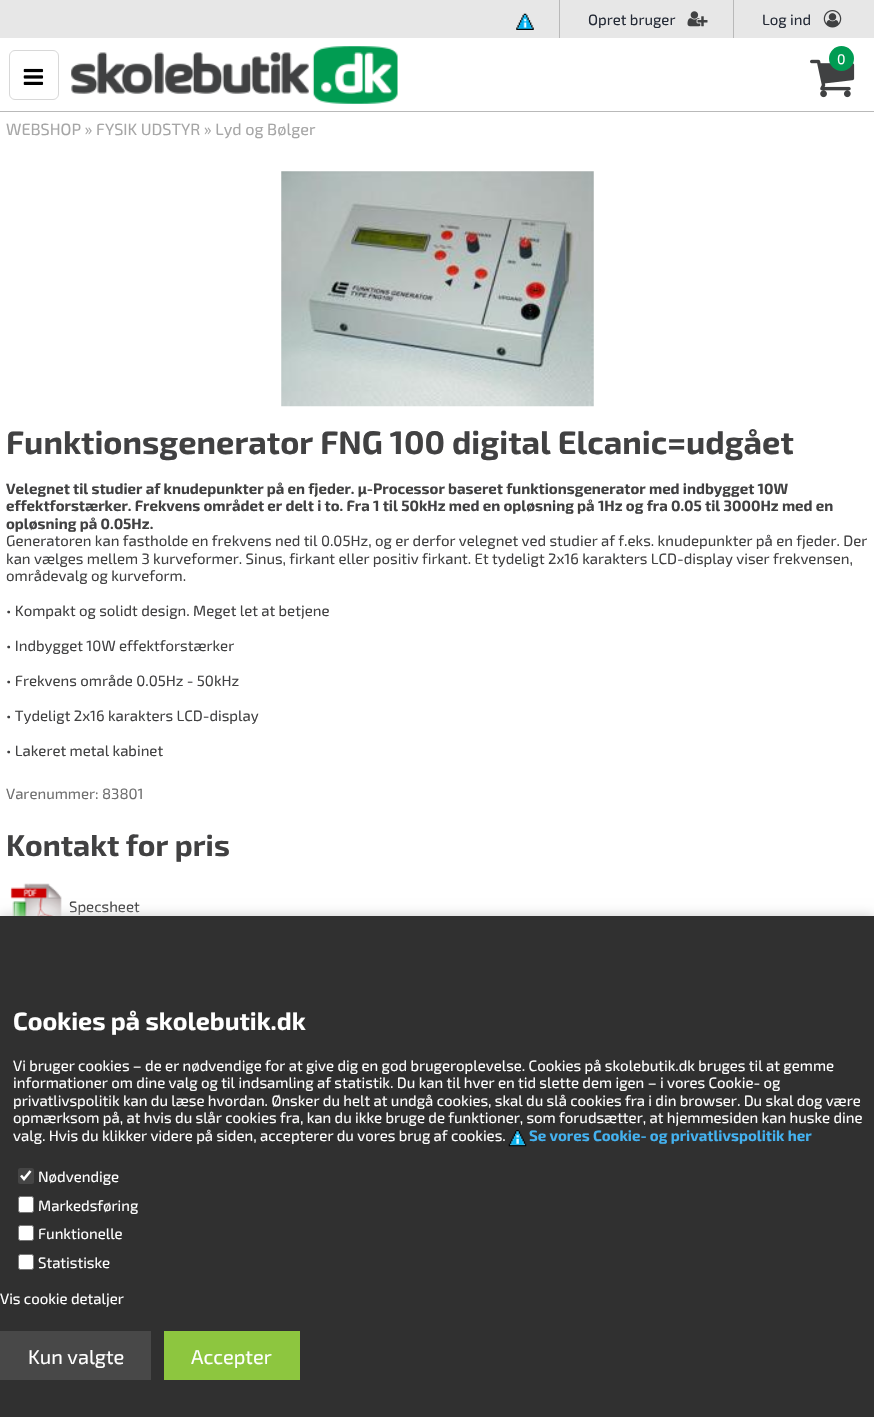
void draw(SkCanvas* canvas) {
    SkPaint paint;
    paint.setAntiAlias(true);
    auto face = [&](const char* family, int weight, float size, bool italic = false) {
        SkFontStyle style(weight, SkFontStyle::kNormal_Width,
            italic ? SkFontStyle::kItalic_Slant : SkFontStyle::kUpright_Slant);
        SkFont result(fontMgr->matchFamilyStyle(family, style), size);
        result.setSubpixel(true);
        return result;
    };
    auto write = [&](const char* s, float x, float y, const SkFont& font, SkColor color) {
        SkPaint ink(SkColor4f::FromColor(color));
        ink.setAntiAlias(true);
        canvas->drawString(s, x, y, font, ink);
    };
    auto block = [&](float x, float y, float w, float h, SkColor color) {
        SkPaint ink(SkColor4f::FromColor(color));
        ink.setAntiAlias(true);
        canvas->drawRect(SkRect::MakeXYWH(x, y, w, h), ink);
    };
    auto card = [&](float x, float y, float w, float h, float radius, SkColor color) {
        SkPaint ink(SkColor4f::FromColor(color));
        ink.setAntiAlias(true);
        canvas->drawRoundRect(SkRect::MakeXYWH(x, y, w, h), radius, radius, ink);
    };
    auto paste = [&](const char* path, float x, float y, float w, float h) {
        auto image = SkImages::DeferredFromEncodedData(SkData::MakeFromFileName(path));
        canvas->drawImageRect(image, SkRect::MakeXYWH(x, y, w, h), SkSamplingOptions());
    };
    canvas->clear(SK_ColorWHITE);
    block(0, 0, 874, 38, SkColorSetRGB(231, 231, 231));
    block(559, 0, 1, 38, SkColorSetRGB(185, 185, 185));
    paste("pic1.png", 516, 13, 18, 17);
    block(733, 0, 1, 38, SkColorSetRGB(185, 185, 185));
    auto kFont1 = face("Exo 2", 400, 15);
    write("Opret bruger", 588, 25, kFont1, SkColorSetRGB(36, 42, 54));
    paste("pic2.png", 687, 11, 21, 16);
    write("Log ind", 762, 25, kFont1, SkColorSetRGB(36, 42, 54));
    paste("pic3.png", 823, 10, 19, 18);
    block(0, 111, 874, 1, SkColorSetRGB(185, 185, 185));
    paint.setStyle(SkPaint::kStroke_Style);
    paint.setStrokeWidth(1);
    paint.setColor(SkColorSetRGB(216, 216, 216));
    canvas->drawRoundRect(SkRect::MakeXYWH(9.5f, 50.5f, 49, 49), 5.5f, 5.5f, paint);
    paste("pic4.png", 23, 68, 21, 17);
    paste("pic5.png", 71, 46, 327, 58);
    paste("pic6.png", 810, 59, 45, 39);
    paint.setStyle(SkPaint::kFill_Style);
    paint.setColor(SkColorSetRGB(0, 156, 83));
    canvas->drawCircle(841.5f, 58.5f, 12.5f, paint);
    auto kFont2 = face("Exo 2", 400, 14);
    write("0", 837, 64, kFont2, SK_ColorWHITE);
    auto kFont3 = face("Exo 2", 400, 16.25f);
    write("WEBSHOP » FYSIK UDSTYR » Lyd og Bølger", 6, 135, kFont3, SkColorSetRGB(166, 166, 166));
    paste("pic7.png", 281, 171, 313, 236);
    auto kFont4 = face("Exo 2", 700, 32.5f);
    write("Funktionsgenerator FNG 100 digital Elcanic=udgået", 6, 454, kFont4, SkColorSetRGB(65, 65, 66));
    auto kFont5 = face("Exo 2", 700, 15);
    write("Velegnet til studier af knudepunkter på en fjeder. µ-Processor baseret funktionsgenerator med indbygget 10W", 6, 494, kFont5, SkColorSetRGB(65, 65, 66));
    write("effektforstærker. Frekvens området er delt i to. Fra 1 til 50kHz med en opløsning på 1Hz og fra 0.05 til 3000Hz med en", 6, 511, kFont5, SkColorSetRGB(65, 65, 66));
    write("opløsning på 0.05Hz.", 6, 529, kFont5, SkColorSetRGB(65, 65, 66));
    write("Generatoren kan fastholde en frekvens ned til 0.05Hz, og er derfor velegnet ved studier af f.eks. knudepunkter på en fjeder. Der", 6, 546, kFont1, SkColorSetRGB(65, 65, 66));
    write("kan vælges mellem 3 kurveformer. Sinus, firkant eller positiv firkant. Et tydeligt 2x16 karakters LCD-display viser frekvensen,", 6, 564, kFont1, SkColorSetRGB(65, 65, 66));
    write("områdevalg og kurveform.", 6, 581, kFont1, SkColorSetRGB(65, 65, 66));
    write("• Kompakt og solidt design. Meget let at betjene", 6, 616, kFont1, SkColorSetRGB(65, 65, 66));
    write("• Indbygget 10W effektforstærker", 6, 651, kFont1, SkColorSetRGB(65, 65, 66));
    write("• Frekvens område 0.05Hz - 50kHz", 6, 686, kFont1, SkColorSetRGB(65, 65, 66));
    write("• Tydeligt 2x16 karakters LCD-display", 6, 721, kFont1, SkColorSetRGB(65, 65, 66));
    write("• Lakeret metal kabinet", 6, 756, kFont1, SkColorSetRGB(65, 65, 66));
    write("Varenummer: 83801", 6, 799, kFont1, SkColorSetRGB(111, 111, 111));
    auto kFont6 = face("Exo 2", 700, 30);
    write("Kontakt for pris", 6, 856, kFont6, SkColorSetRGB(65, 65, 66));
    paste("pic8.png", 10, 883, 52, 33);
    write("Specsheet", 69, 912, kFont1, SkColorSetRGB(65, 65, 66));
    paint.setColor(SkColorSetRGB(204, 204, 204));
    paint.setMaskFilter(SkMaskFilter::MakeBlur(kNormal_SkBlurStyle, 6));
    canvas->drawRect(SkRect::MakeXYWH(0, 916, 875, 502), paint);
    paint.setMaskFilter(nullptr);
    block(0, 916, 874, 501, SkColorSetRGB(48, 48, 48));
    auto kFont7 = face("Exo 2", 700, 25);
    write("Cookies på skolebutik.dk", 13, 1030, kFont7, SK_ColorWHITE);
    write("Vi bruger cookies – de er nødvendige for at give dig en god brugeroplevelse. Cookies på skolebutik.dk bruges til at gemme", 13, 1071, kFont1, SK_ColorWHITE);
    write("informationer om dine valg og til indsamling af statistik. Du kan til hver en tid slette dem igen – i vores Cookie- og", 13, 1088, kFont1, SK_ColorWHITE);
    write("privatlivspolitik kan du læse hvordan. Ønsker du helt at undgå cookies, skal du slå cookies fra i din browser. Du skal dog være", 13, 1106, kFont1, SK_ColorWHITE);
    write("opmærksom på, at hvis du slår cookies fra, kan du ikke bruge de funktioner, som forudsætter, at hjemmesiden kan huske dine", 13, 1123, kFont1, SK_ColorWHITE);
    write("valg. Hvis du klikker videre på siden, accepterer du vores brug af cookies.", 13, 1141, kFont1, SK_ColorWHITE);
    paste("pic9.png", 508, 1130, 19, 17);
    write("Se vores Cookie- og privatlivspolitik her", 529, 1141, kFont5, SkColorSetRGB(68, 178, 240));
    card(18, 1168, 16, 16, 2.5f, SkColorSetRGB(69, 69, 69));
    paint.setStyle(SkPaint::kStroke_Style);
    paint.setStrokeWidth(2.6f);
    paint.setColor(SK_ColorWHITE);
    canvas->drawPath(SkPathBuilder().moveTo(21, 1175.5f).lineTo(24, 1179).lineTo(30.5f, 1171).detach(), paint);
    write("Nødvendige", 38, 1182, kFont1, SK_ColorWHITE);
    paint.setStyle(SkPaint::kFill_Style);
    canvas->drawRoundRect(SkRect::MakeXYWH(18.5f, 1196.5f, 15, 16), 2, 2, paint);
    paint.setStyle(SkPaint::kStroke_Style);
    paint.setStrokeWidth(1);
    paint.setColor(SkColorSetRGB(118, 118, 118));
    canvas->drawRoundRect(SkRect::MakeXYWH(18.5f, 1196.5f, 15, 16), 2, 2, paint);
    write("Markedsføring", 38, 1211, kFont1, SK_ColorWHITE);
    paint.setStyle(SkPaint::kFill_Style);
    paint.setColor(SK_ColorWHITE);
    canvas->drawRoundRect(SkRect::MakeXYWH(18.5f, 1225.5f, 15, 15), 2, 2, paint);
    paint.setStyle(SkPaint::kStroke_Style);
    paint.setColor(SkColorSetRGB(118, 118, 118));
    canvas->drawRoundRect(SkRect::MakeXYWH(18.5f, 1225.5f, 15, 15), 2, 2, paint);
    write("Funktionelle", 38, 1239, kFont1, SK_ColorWHITE);
    paint.setStyle(SkPaint::kFill_Style);
    paint.setColor(SK_ColorWHITE);
    canvas->drawRoundRect(SkRect::MakeXYWH(18.5f, 1254.5f, 15, 15), 2, 2, paint);
    paint.setStyle(SkPaint::kStroke_Style);
    paint.setColor(SkColorSetRGB(118, 118, 118));
    canvas->drawRoundRect(SkRect::MakeXYWH(18.5f, 1254.5f, 15, 15), 2, 2, paint);
    write("Statistiske", 38, 1268, kFont1, SK_ColorWHITE);
    write("Vis cookie detaljer", 0, 1304, kFont1, SK_ColorWHITE);
    block(0, 1331, 151, 49, SkColorSetRGB(72, 72, 72));
    auto kFont8 = face("Exo 2", 400, 20);
    write("Kun valgte", 28, 1364, kFont8, SK_ColorWHITE);
    block(164, 1331, 136, 49, SkColorSetRGB(141, 198, 63));
    write("Accepter", 191, 1364, kFont8, SK_ColorWHITE);
}
